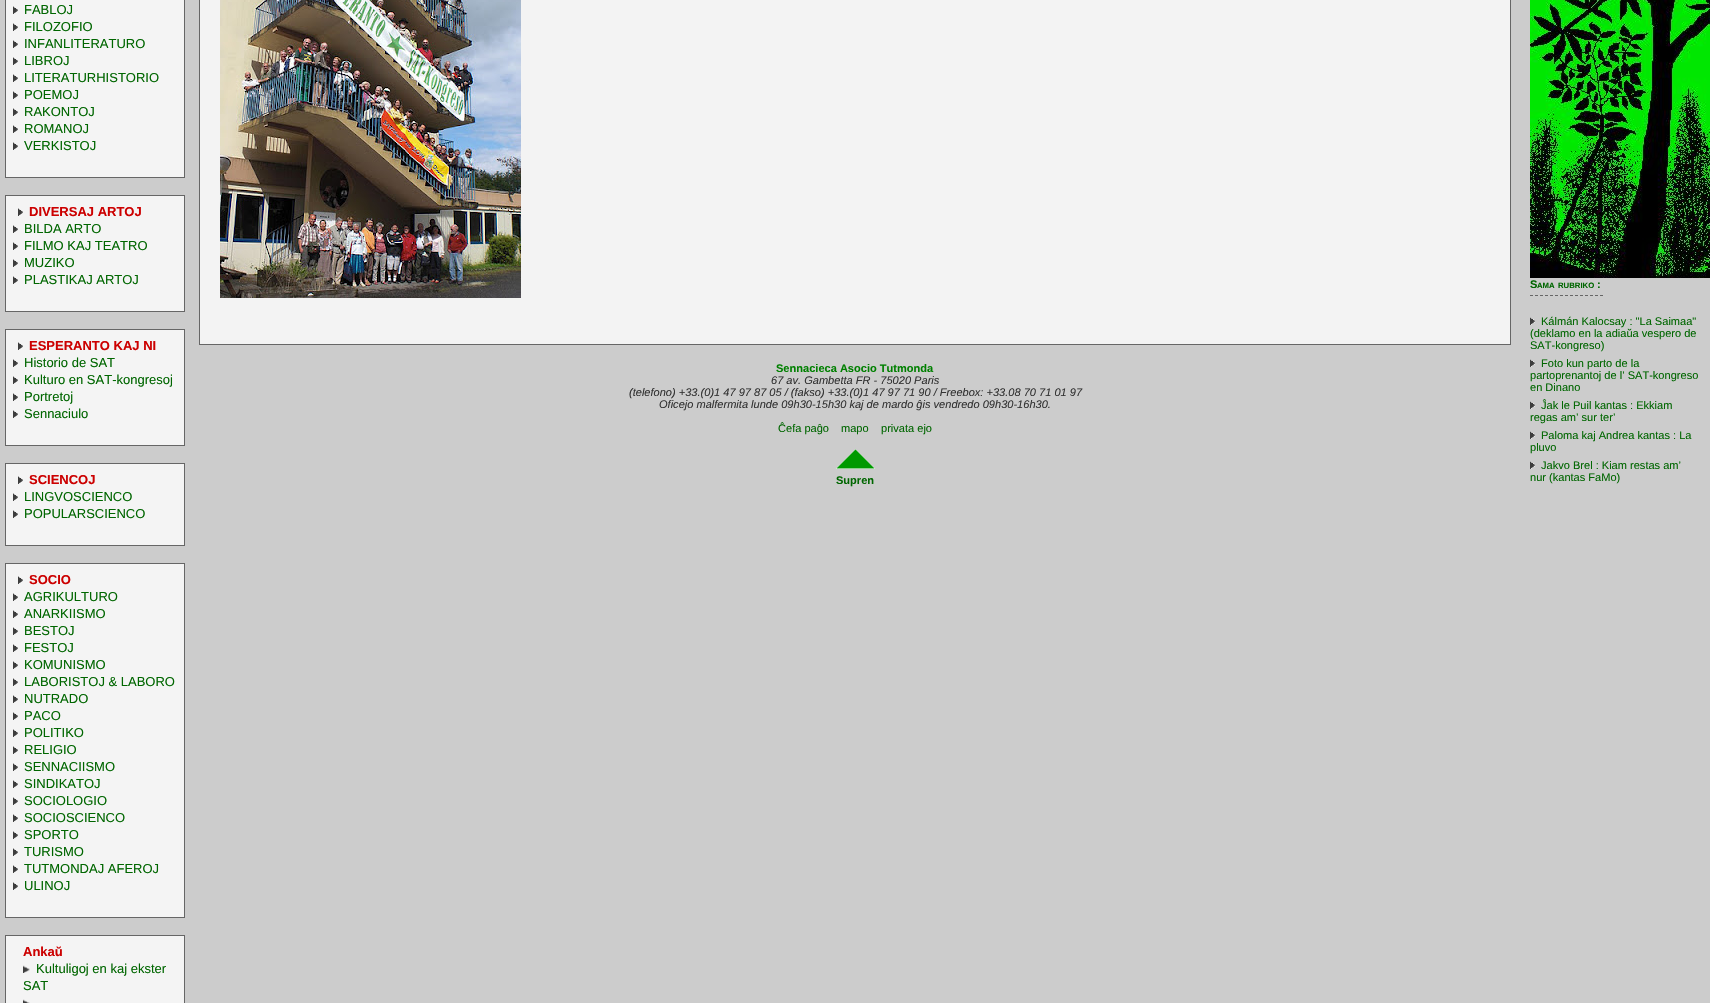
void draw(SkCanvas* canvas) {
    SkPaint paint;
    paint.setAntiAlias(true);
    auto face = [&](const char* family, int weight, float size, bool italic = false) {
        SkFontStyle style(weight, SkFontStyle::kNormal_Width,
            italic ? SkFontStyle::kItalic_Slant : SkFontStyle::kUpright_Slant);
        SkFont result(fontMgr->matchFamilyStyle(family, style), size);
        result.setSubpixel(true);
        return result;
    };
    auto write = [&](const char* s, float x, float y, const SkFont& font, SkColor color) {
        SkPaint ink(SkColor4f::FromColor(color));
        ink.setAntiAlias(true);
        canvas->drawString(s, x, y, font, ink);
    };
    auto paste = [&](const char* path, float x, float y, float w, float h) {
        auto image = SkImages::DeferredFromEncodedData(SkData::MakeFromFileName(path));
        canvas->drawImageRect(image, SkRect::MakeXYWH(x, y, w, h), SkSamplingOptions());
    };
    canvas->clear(SkColorSetRGB(204, 204, 204));
    paint.setColor(SkColorSetRGB(244, 244, 244));
    canvas->drawRect(SkRect::MakeXYWH(5.5f, -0.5f, 179, 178), paint);
    paint.setStyle(SkPaint::kStroke_Style);
    paint.setStrokeWidth(1);
    paint.setColor(SkColorSetRGB(102, 102, 102));
    canvas->drawRect(SkRect::MakeXYWH(5.5f, -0.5f, 179, 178), paint);
    paste("pic1.png", 13, 6, 5, 8);
    auto kFont1 = face("Liberation Sans", 400, 13);
    write("FABLOJ", 24, 14, kFont1, SkColorSetRGB(0, 102, 0));
    paste("pic1.png", 13, 23, 5, 8);
    write("FILOZOFIO", 24, 31, kFont1, SkColorSetRGB(0, 102, 0));
    paste("pic1.png", 13, 40, 5, 8);
    write("INFANLITERATURO", 24, 48, kFont1, SkColorSetRGB(0, 102, 0));
    paste("pic1.png", 13, 57, 5, 8);
    write("LIBROJ", 24, 65, kFont1, SkColorSetRGB(0, 102, 0));
    paste("pic1.png", 13, 74, 5, 8);
    write("LITERATURHISTORIO", 24, 82, kFont1, SkColorSetRGB(0, 102, 0));
    paste("pic1.png", 13, 91, 5, 8);
    write("POEMOJ", 24, 99, kFont1, SkColorSetRGB(0, 102, 0));
    paste("pic1.png", 13, 108, 5, 8);
    write("RAKONTOJ", 24, 116, kFont1, SkColorSetRGB(0, 102, 0));
    paste("pic1.png", 13, 125, 5, 8);
    write("ROMANOJ", 24, 133, kFont1, SkColorSetRGB(0, 102, 0));
    paste("pic1.png", 13, 142, 5, 8);
    write("VERKISTOJ", 24, 150, kFont1, SkColorSetRGB(0, 102, 0));
    paint.setStyle(SkPaint::kFill_Style);
    paint.setColor(SkColorSetRGB(244, 244, 244));
    canvas->drawRect(SkRect::MakeXYWH(5.5f, 195.5f, 179, 116), paint);
    paint.setStyle(SkPaint::kStroke_Style);
    paint.setColor(SkColorSetRGB(102, 102, 102));
    canvas->drawRect(SkRect::MakeXYWH(5.5f, 195.5f, 179, 116), paint);
    paste("pic1.png", 18, 208, 5, 8);
    auto kFont2 = face("Liberation Sans", 700, 13);
    write("DIVERSAJ ARTOJ", 29, 216, kFont2, SkColorSetRGB(204, 0, 0));
    paste("pic1.png", 13, 225, 5, 8);
    write("BILDA ARTO", 24, 233, kFont1, SkColorSetRGB(0, 102, 0));
    paste("pic1.png", 13, 242, 5, 8);
    write("FILMO KAJ TEATRO", 24, 250, kFont1, SkColorSetRGB(0, 102, 0));
    paste("pic1.png", 13, 259, 5, 8);
    write("MUZIKO", 24, 267, kFont1, SkColorSetRGB(0, 102, 0));
    paste("pic1.png", 13, 276, 5, 8);
    write("PLASTIKAJ ARTOJ", 24, 284, kFont1, SkColorSetRGB(0, 102, 0));
    paint.setStyle(SkPaint::kFill_Style);
    paint.setColor(SkColorSetRGB(244, 244, 244));
    canvas->drawRect(SkRect::MakeXYWH(5.5f, 329.5f, 179, 116), paint);
    paint.setStyle(SkPaint::kStroke_Style);
    paint.setColor(SkColorSetRGB(102, 102, 102));
    canvas->drawRect(SkRect::MakeXYWH(5.5f, 329.5f, 179, 116), paint);
    paste("pic1.png", 18, 342, 5, 8);
    write("ESPERANTO KAJ NI", 29, 350, kFont2, SkColorSetRGB(204, 0, 0));
    paste("pic1.png", 13, 359, 5, 8);
    write("Historio de SAT", 24, 367, kFont1, SkColorSetRGB(0, 102, 0));
    paste("pic1.png", 13, 376, 5, 8);
    write("Kulturo en SAT-kongresoj", 24, 384, kFont1, SkColorSetRGB(0, 102, 0));
    paste("pic1.png", 13, 393, 5, 8);
    write("Portretoj", 24, 401, kFont1, SkColorSetRGB(0, 102, 0));
    paste("pic1.png", 13, 410, 5, 8);
    write("Sennaciulo", 24, 418, kFont1, SkColorSetRGB(0, 102, 0));
    paint.setStyle(SkPaint::kFill_Style);
    paint.setColor(SkColorSetRGB(244, 244, 244));
    canvas->drawRect(SkRect::MakeXYWH(5.5f, 463.5f, 179, 82), paint);
    paint.setStyle(SkPaint::kStroke_Style);
    paint.setColor(SkColorSetRGB(102, 102, 102));
    canvas->drawRect(SkRect::MakeXYWH(5.5f, 463.5f, 179, 82), paint);
    paste("pic1.png", 18, 476, 5, 8);
    write("SCIENCOJ", 29, 484, kFont2, SkColorSetRGB(204, 0, 0));
    paste("pic1.png", 13, 493, 5, 8);
    write("LINGVOSCIENCO", 24, 501, kFont1, SkColorSetRGB(0, 102, 0));
    paste("pic1.png", 13, 510, 5, 8);
    write("POPULARSCIENCO", 24, 518, kFont1, SkColorSetRGB(0, 102, 0));
    paint.setStyle(SkPaint::kFill_Style);
    paint.setColor(SkColorSetRGB(244, 244, 244));
    canvas->drawRect(SkRect::MakeXYWH(5.5f, 563.5f, 179, 354), paint);
    paint.setStyle(SkPaint::kStroke_Style);
    paint.setColor(SkColorSetRGB(102, 102, 102));
    canvas->drawRect(SkRect::MakeXYWH(5.5f, 563.5f, 179, 354), paint);
    paste("pic1.png", 18, 576, 5, 8);
    write("SOCIO", 29, 584, kFont2, SkColorSetRGB(204, 0, 0));
    paste("pic1.png", 13, 593, 5, 8);
    write("AGRIKULTURO", 24, 601, kFont1, SkColorSetRGB(0, 102, 0));
    paste("pic1.png", 13, 610, 5, 8);
    write("ANARKIISMO", 24, 618, kFont1, SkColorSetRGB(0, 102, 0));
    paste("pic1.png", 13, 627, 5, 8);
    write("BESTOJ", 24, 635, kFont1, SkColorSetRGB(0, 102, 0));
    paste("pic1.png", 13, 644, 5, 8);
    write("FESTOJ", 24, 652, kFont1, SkColorSetRGB(0, 102, 0));
    paste("pic1.png", 13, 661, 5, 8);
    write("KOMUNISMO", 24, 669, kFont1, SkColorSetRGB(0, 102, 0));
    paste("pic1.png", 13, 678, 5, 8);
    write("LABORISTOJ & LABORO", 24, 686, kFont1, SkColorSetRGB(0, 102, 0));
    paste("pic1.png", 13, 695, 5, 8);
    write("NUTRADO", 24, 703, kFont1, SkColorSetRGB(0, 102, 0));
    paste("pic1.png", 13, 712, 5, 8);
    write("PACO", 24, 720, kFont1, SkColorSetRGB(0, 102, 0));
    paste("pic1.png", 13, 729, 5, 8);
    write("POLITIKO", 24, 737, kFont1, SkColorSetRGB(0, 102, 0));
    paste("pic1.png", 13, 746, 5, 8);
    write("RELIGIO", 24, 754, kFont1, SkColorSetRGB(0, 102, 0));
    paste("pic1.png", 13, 763, 5, 8);
    write("SENNACIISMO", 24, 771, kFont1, SkColorSetRGB(0, 102, 0));
    paste("pic1.png", 13, 780, 5, 8);
    write("SINDIKATOJ", 24, 788, kFont1, SkColorSetRGB(0, 102, 0));
    paste("pic1.png", 13, 797, 5, 8);
    write("SOCIOLOGIO", 24, 805, kFont1, SkColorSetRGB(0, 102, 0));
    paste("pic1.png", 13, 814, 5, 8);
    write("SOCIOSCIENCO", 24, 822, kFont1, SkColorSetRGB(0, 102, 0));
    paste("pic1.png", 13, 831, 5, 8);
    write("SPORTO", 24, 839, kFont1, SkColorSetRGB(0, 102, 0));
    paste("pic1.png", 13, 848, 5, 8);
    write("TURISMO", 24, 856, kFont1, SkColorSetRGB(0, 102, 0));
    paste("pic1.png", 13, 865, 5, 8);
    write("TUTMONDAJ AFEROJ", 24, 873, kFont1, SkColorSetRGB(0, 102, 0));
    paste("pic1.png", 13, 882, 5, 8);
    write("ULINOJ", 24, 890, kFont1, SkColorSetRGB(0, 102, 0));
    paint.setStyle(SkPaint::kFill_Style);
    paint.setColor(SkColorSetRGB(244, 244, 244));
    canvas->drawRect(SkRect::MakeXYWH(5.5f, 935.5f, 179, 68), paint);
    paint.setStyle(SkPaint::kStroke_Style);
    paint.setColor(SkColorSetRGB(102, 102, 102));
    canvas->drawRect(SkRect::MakeXYWH(5.5f, 935.5f, 179, 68), paint);
    write("Ankaŭ", 23, 956, kFont2, SkColorSetRGB(204, 0, 0));
    paste("pic2.png", 23, 965, 7, 8);
    write("Kultuligoj en kaj ekster", 36, 973, kFont1, SkColorSetRGB(0, 102, 0));
    write("SAT", 23, 990, kFont1, SkColorSetRGB(0, 102, 0));
    paste("pic3.png", 23, 999, 7, 4);
    paint.setStyle(SkPaint::kFill_Style);
    paint.setColor(SkColorSetRGB(243, 243, 243));
    canvas->drawRect(SkRect::MakeXYWH(199.5f, -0.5f, 1311, 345), paint);
    paint.setStyle(SkPaint::kStroke_Style);
    paint.setColor(SkColorSetRGB(102, 102, 102));
    canvas->drawRect(SkRect::MakeXYWH(199.5f, -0.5f, 1311, 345), paint);
    paste("pic4.png", 220, 0, 301, 298);
    paste("pic5.png", 1530, 0, 180, 278);
    auto kFont3 = face("Liberation Sans", 700, 11.05f);
    write("S", 1530, 288, kFont3, SkColorSetRGB(0, 102, 0));
    auto kFont4 = face("Liberation Sans", 700, 7.75f);
    write("AMA", 1537, 288, kFont4, SkColorSetRGB(0, 102, 0));
    write("RUBRIKO", 1558, 288, kFont4, SkColorSetRGB(0, 102, 0));
    paint.setPathEffect(SkDashPathEffect::Make({{3, 2}}, 0));
    canvas->drawPath(SkPathBuilder().moveTo(1530, 295.5f).lineTo(1603, 295.5f).detach(), paint);
    paint.setPathEffect(nullptr);
    write(":", 1597, 288, kFont3, SkColorSetRGB(0, 102, 0));
    paste("pic6.png", 1530, 317, 5, 8);
    auto kFont5 = face("Liberation Sans", 400, 11.05f);
    write("Kálmán Kalocsay : \"La Saimaa\"", 1541, 325, kFont5, SkColorSetRGB(0, 102, 0));
    write("(deklamo en la adiaŭa vespero de", 1530, 337, kFont5, SkColorSetRGB(0, 102, 0));
    write("SAT-kongreso)", 1530, 349, kFont5, SkColorSetRGB(0, 102, 0));
    paste("pic6.png", 1530, 359, 5, 8);
    write("Foto kun parto de la", 1541, 367, kFont5, SkColorSetRGB(0, 102, 0));
    write("partoprenantoj de l’ SAT-kongreso", 1530, 379, kFont5, SkColorSetRGB(0, 102, 0));
    write("en Dinano", 1530, 391, kFont5, SkColorSetRGB(0, 102, 0));
    paste("pic6.png", 1530, 401, 5, 8);
    write("Ĵak le Puil kantas : Ekkiam", 1541, 409, kFont5, SkColorSetRGB(0, 102, 0));
    write("regas am’ sur ter’", 1530, 421, kFont5, SkColorSetRGB(0, 102, 0));
    paste("pic6.png", 1530, 431, 5, 8);
    write("Paloma kaj Andrea kantas : La", 1541, 439, kFont5, SkColorSetRGB(0, 102, 0));
    write("pluvo", 1530, 451, kFont5, SkColorSetRGB(0, 102, 0));
    paste("pic6.png", 1530, 461, 5, 8);
    write("Jakvo Brel : Kiam restas am’", 1541, 469, kFont5, SkColorSetRGB(0, 102, 0));
    write("nur (kantas FaMo)", 1530, 481, kFont5, SkColorSetRGB(0, 102, 0));
    write("Sennacieca Asocio Tutmonda", 776, 372, kFont3, SkColorSetRGB(0, 128, 0));
    auto kFont6 = face("Liberation Sans", 400, 11.05f, true);
    write("67 av. Gambetta FR - 75020 Paris", 771, 384, kFont6, SkColorSetRGB(51, 51, 51));
    write("(telefono) +33.(0)1 47 97 87 05 / (fakso) +33.(0)1 47 97 71 90 / Freebox: +33.08 70 71 01 97", 629, 396, kFont6, SkColorSetRGB(51, 51, 51));
    write("Oficejo malfermita lunde 09h30-15h30 kaj de mardo ĝis vendredo 09h30-16h30.", 659, 408, kFont6, SkColorSetRGB(51, 51, 51));
    write("Ĉefa paĝo", 778, 432, kFont5, SkColorSetRGB(0, 102, 0));
    write("mapo", 841, 432, kFont5, SkColorSetRGB(0, 102, 0));
    write("privata ejo", 881, 432, kFont5, SkColorSetRGB(0, 102, 0));
    paste("pic7.png", 836, 449, 39, 20);
    write("Supren", 836, 484, kFont3, SkColorSetRGB(0, 102, 0));
}
